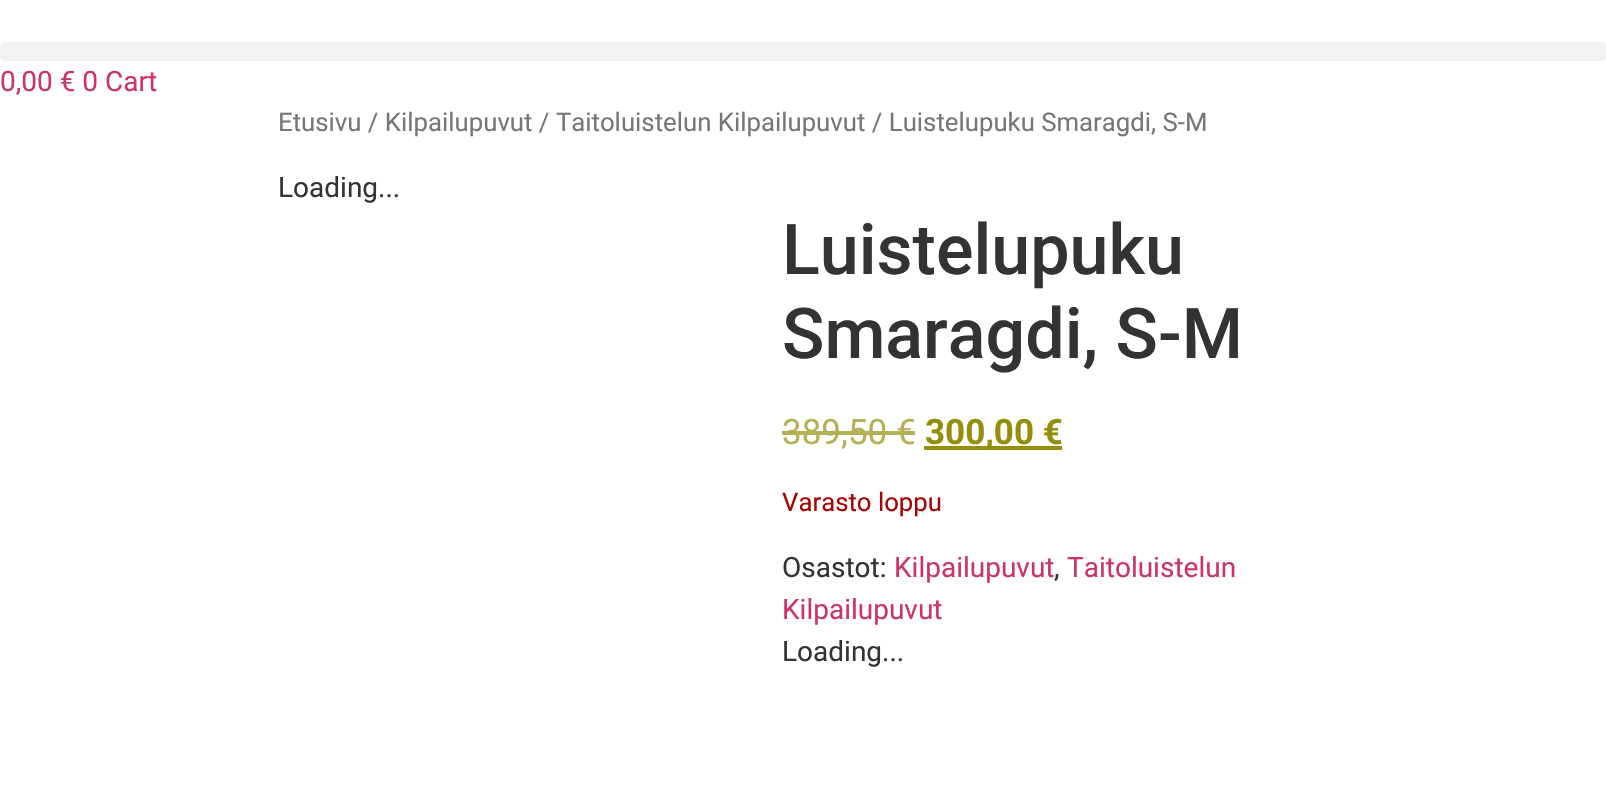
void draw(SkCanvas* canvas) {
    SkPaint paint;
    paint.setAntiAlias(true);
    auto face = [&](const char* family, int weight, float size, bool italic = false) {
        SkFontStyle style(weight, SkFontStyle::kNormal_Width,
            italic ? SkFontStyle::kItalic_Slant : SkFontStyle::kUpright_Slant);
        SkFont result(fontMgr->matchFamilyStyle(family, style), size);
        result.setSubpixel(true);
        return result;
    };
    auto write = [&](const char* s, float x, float y, const SkFont& font, SkColor color) {
        SkPaint ink(SkColor4f::FromColor(color));
        ink.setAntiAlias(true);
        canvas->drawString(s, x, y, font, ink);
    };
    auto block = [&](float x, float y, float w, float h, SkColor color) {
        SkPaint ink(SkColor4f::FromColor(color));
        ink.setAntiAlias(true);
        canvas->drawRect(SkRect::MakeXYWH(x, y, w, h), ink);
    };
    auto card = [&](float x, float y, float w, float h, float radius, SkColor color) {
        SkPaint ink(SkColor4f::FromColor(color));
        ink.setAntiAlias(true);
        canvas->drawRoundRect(SkRect::MakeXYWH(x, y, w, h), radius, radius, ink);
    };
    canvas->clear(SK_ColorWHITE);
    card(0, 42, 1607, 19, 5, SkColorSetRGB(242, 242, 242));
    auto kFont1 = face("Roboto", 400, 28);
    write("0,00 € 0 Cart", 0, 91, kFont1, SkColorSetRGB(204, 51, 102));
    auto kFont2 = face("Roboto", 400, 25.75f);
    write("Etusivu / Kilpailupuvut / Taitoluistelun Kilpailupuvut / Luistelupuku Smaragdi, S-M", 278, 131, kFont2, SkColorSetRGB(118, 118, 118));
    write("Loading...", 278, 197, kFont1, SkColorSetRGB(51, 51, 51));
    auto kFont3 = face("Roboto", 500, 70);
    write("Luistelupuku", 782, 274, kFont3, SkColorSetRGB(51, 51, 51));
    write("Smaragdi, S-M", 782, 358, kFont3, SkColorSetRGB(51, 51, 51));
    auto kFont4 = face("Roboto", 400, 35);
    write("389,50 €", 782, 444, kFont4, SkColorSetRGB(181, 176, 83));
    block(782, 431, 133, 4, SkColorSetRGB(181, 176, 83));
    block(924, 446, 138, 4, SkColorSetRGB(149, 142, 9));
    auto kFont5 = face("Roboto", 700, 35);
    write("300,00 €", 925, 444, kFont5, SkColorSetRGB(149, 142, 9));
    write("Varasto loppu", 782, 511, kFont2, SkColorSetRGB(170, 0, 0));
    write("Osastot:", 782, 577, kFont1, SkColorSetRGB(51, 51, 51));
    write("Kilpailupuvut", 894, 577, kFont1, SkColorSetRGB(204, 51, 102));
    write(",", 1054, 577, kFont1, SkColorSetRGB(51, 51, 51));
    write("Taitoluistelun", 1067, 577, kFont1, SkColorSetRGB(204, 51, 102));
    write("Kilpailupuvut", 782, 619, kFont1, SkColorSetRGB(204, 51, 102));
    write("Loading...", 782, 661, kFont1, SkColorSetRGB(51, 51, 51));
}
